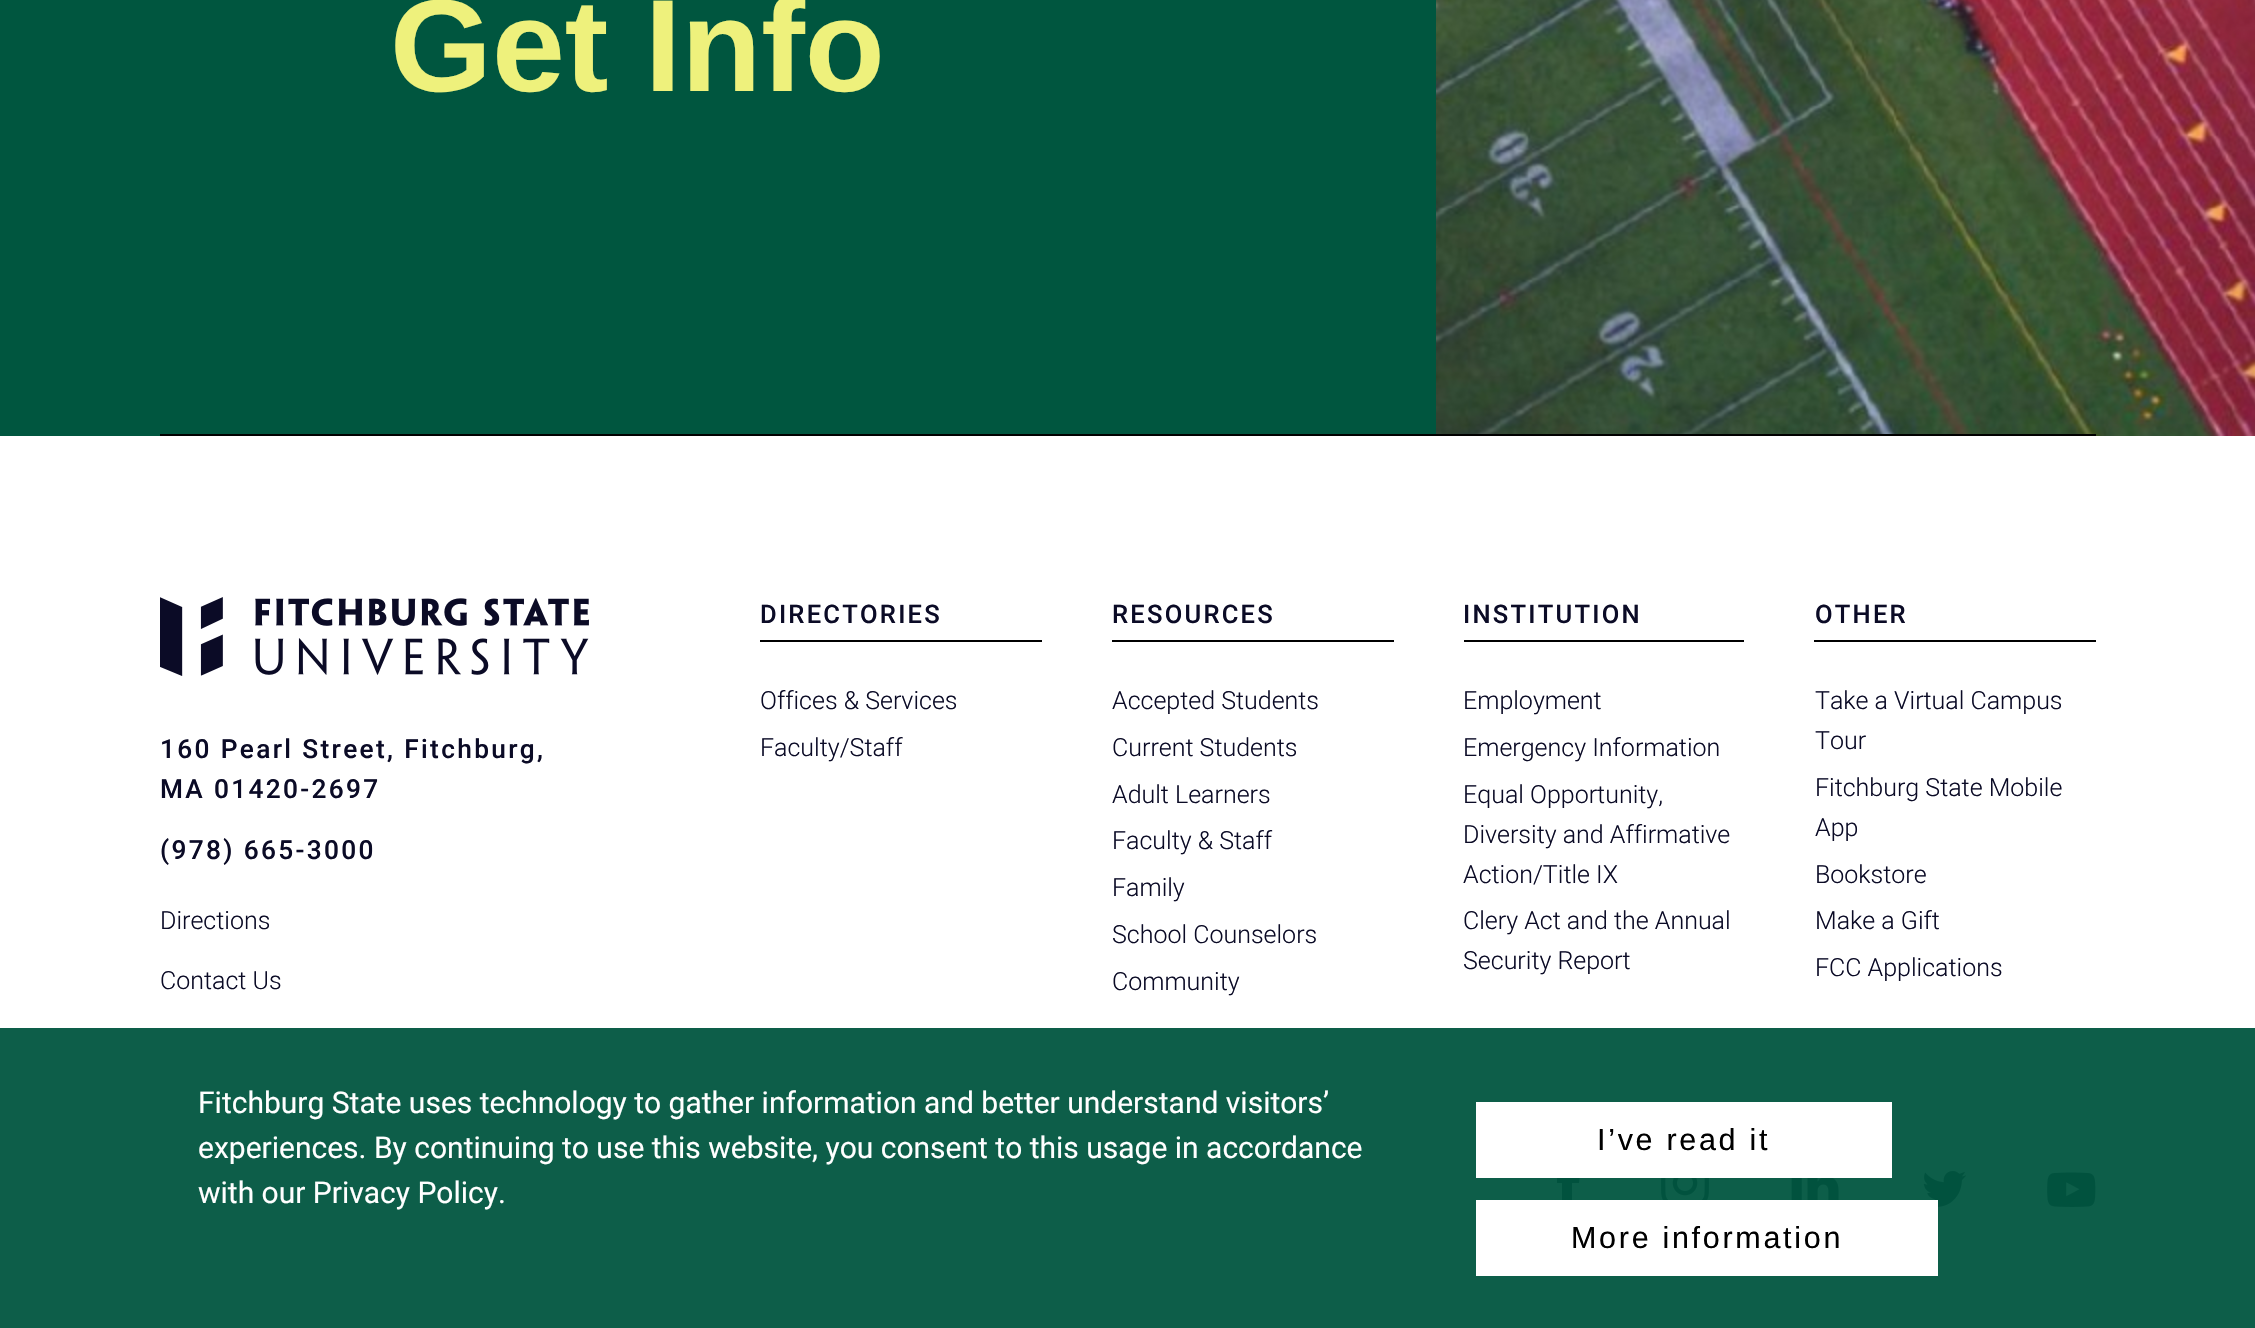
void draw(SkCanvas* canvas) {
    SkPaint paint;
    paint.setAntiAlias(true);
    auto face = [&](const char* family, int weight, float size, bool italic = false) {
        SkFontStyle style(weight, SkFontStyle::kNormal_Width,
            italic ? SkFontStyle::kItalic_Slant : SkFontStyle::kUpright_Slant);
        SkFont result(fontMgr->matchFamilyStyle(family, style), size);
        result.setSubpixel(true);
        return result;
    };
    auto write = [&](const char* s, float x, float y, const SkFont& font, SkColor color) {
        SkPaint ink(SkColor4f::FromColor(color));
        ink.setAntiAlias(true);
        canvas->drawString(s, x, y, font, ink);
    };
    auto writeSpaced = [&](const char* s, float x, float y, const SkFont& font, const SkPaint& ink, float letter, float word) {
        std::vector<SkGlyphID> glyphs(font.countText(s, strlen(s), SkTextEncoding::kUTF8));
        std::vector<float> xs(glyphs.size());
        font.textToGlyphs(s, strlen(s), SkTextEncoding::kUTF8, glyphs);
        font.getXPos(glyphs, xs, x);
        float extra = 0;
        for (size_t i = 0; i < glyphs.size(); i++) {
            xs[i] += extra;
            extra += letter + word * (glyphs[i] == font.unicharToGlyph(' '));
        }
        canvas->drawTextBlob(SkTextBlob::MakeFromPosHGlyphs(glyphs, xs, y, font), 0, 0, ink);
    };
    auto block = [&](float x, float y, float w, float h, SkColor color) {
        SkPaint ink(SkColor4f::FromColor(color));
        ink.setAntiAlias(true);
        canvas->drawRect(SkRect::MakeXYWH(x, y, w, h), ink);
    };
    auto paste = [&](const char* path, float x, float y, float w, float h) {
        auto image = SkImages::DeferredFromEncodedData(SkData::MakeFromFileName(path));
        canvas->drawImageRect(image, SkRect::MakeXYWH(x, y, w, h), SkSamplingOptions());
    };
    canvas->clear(SK_ColorWHITE);
    block(0, 1028, 2255, 300, SkColorSetRGB(13, 94, 73));
    block(0, 0, 1436, 436, SkColorSetRGB(0, 86, 63));
    auto kFont1 = face("Liberation Sans", 700, 131);
    write("Get Info", 390, 91, kFont1, SkColorSetRGB(238, 241, 124));
    paste("pic1.png", 1436, 0, 819, 436);
    block(160, 434, 1936, 2, SK_ColorBLACK);
    paste("pic2.png", 160, 597, 429, 79);
    auto kFont2 = face("Roboto", 500, 26.25f);
    paint.setColor(SkColorSetRGB(11, 11, 38));
    writeSpaced("160 Pearl Street, Fitchburg,", 160, 758, kFont2, paint, 2.35f, 0);
    writeSpaced("MA 01420-2697", 160, 798, kFont2, paint, 2.35f, 0);
    writeSpaced("(978) 665-3000", 160, 859, kFont2, paint, 2.35f, 0);
    auto kFont3 = face("Roboto", 300, 25);
    write("Directions", 160, 929, kFont3, SkColorSetRGB(11, 11, 38));
    write("Contact Us", 160, 989, kFont3, SkColorSetRGB(11, 11, 38));
    block(760, 640, 282, 2, SK_ColorBLACK);
    auto kFont4 = face("Roboto", 500, 25.5f);
    writeSpaced("DIRECTORIES", 760, 623, kFont4, paint, 2.25f, 0);
    write("Offices & Services", 760, 709, kFont3, SkColorSetRGB(11, 11, 38));
    write("Faculty/Staff", 760, 756, kFont3, SkColorSetRGB(11, 11, 38));
    block(1112, 640, 282, 2, SK_ColorBLACK);
    writeSpaced("RESOURCES", 1112, 623, kFont4, paint, 2.25f, 0);
    write("Accepted Students", 1112, 709, kFont3, SkColorSetRGB(11, 11, 38));
    write("Current Students", 1112, 756, kFont3, SkColorSetRGB(11, 11, 38));
    write("Adult Learners", 1112, 803, kFont3, SkColorSetRGB(11, 11, 38));
    write("Faculty & Staff", 1112, 849, kFont3, SkColorSetRGB(11, 11, 38));
    write("Family", 1112, 896, kFont3, SkColorSetRGB(11, 11, 38));
    write("School Counselors", 1112, 943, kFont3, SkColorSetRGB(11, 11, 38));
    write("Community", 1112, 990, kFont3, SkColorSetRGB(11, 11, 38));
    block(1464, 640, 280, 2, SK_ColorBLACK);
    writeSpaced("INSTITUTION", 1463, 623, kFont4, paint, 2.25f, 0);
    write("Employment", 1463, 709, kFont3, SkColorSetRGB(11, 11, 38));
    write("Emergency Information", 1463, 756, kFont3, SkColorSetRGB(11, 11, 38));
    write("Equal Opportunity,", 1463, 803, kFont3, SkColorSetRGB(11, 11, 38));
    write("Diversity and Affirmative", 1463, 843, kFont3, SkColorSetRGB(11, 11, 38));
    write("Action/Title IX", 1463, 883, kFont3, SkColorSetRGB(11, 11, 38));
    write("Clery Act and the Annual", 1463, 929, kFont3, SkColorSetRGB(11, 11, 38));
    write("Security Report", 1463, 969, kFont3, SkColorSetRGB(11, 11, 38));
    block(1814, 640, 282, 2, SK_ColorBLACK);
    writeSpaced("OTHER", 1815, 623, kFont4, paint, 2.25f, 0);
    write("Take a Virtual Campus", 1815, 709, kFont3, SkColorSetRGB(11, 11, 38));
    write("Tour", 1815, 749, kFont3, SkColorSetRGB(11, 11, 38));
    write("Fitchburg State Mobile", 1815, 796, kFont3, SkColorSetRGB(11, 11, 38));
    write("App", 1815, 836, kFont3, SkColorSetRGB(11, 11, 38));
    write("Bookstore", 1815, 883, kFont3, SkColorSetRGB(11, 11, 38));
    write("Make a Gift", 1815, 929, kFont3, SkColorSetRGB(11, 11, 38));
    write("FCC Applications", 1815, 976, kFont3, SkColorSetRGB(11, 11, 38));
    paint.setColor(SkColorSetRGB(1, 82, 62));
    canvas->drawPath(SkPathBuilder(SkPathFillType::kEvenOdd).moveTo(1572, 1208).lineTo(1572, 1183).lineTo(1579, 1183).lineTo(1580, 1175).lineTo(1572, 1175).cubicTo(1572, 1167, 1572, 1167, 1580, 1167).lineTo(1580, 1159).cubicTo(1565, 1159, 1562, 1160, 1562, 1175).lineTo(1557, 1175).lineTo(1557, 1183).lineTo(1562, 1183).lineTo(1562, 1208).close().detach(), paint);
    paste("pic3.png", 1661, 1178, 48, 22);
    paste("pic4.png", 1791, 1178, 48, 22);
    paste("pic5.png", 1923, 1171, 43, 36);
    paste("pic6.png", 2047, 1172, 49, 35);
    auto kFont5 = face("Roboto", 400, 30);
    write("Fitchburg State uses technology to gather information and better understand visitors’", 198, 1113, kFont5, SK_ColorWHITE);
    write("experiences. By continuing to use this website, you consent to this usage in accordance", 198, 1158, kFont5, SK_ColorWHITE);
    write("with our Privacy Policy.", 198, 1203, kFont5, SK_ColorWHITE);
    block(1476, 1102, 416, 76, SK_ColorWHITE);
    auto kFont6 = face("Liberation Sans", 400, 30.5f);
    paint.setColor(SK_ColorBLACK);
    writeSpaced("I’ve read it", 1597, 1150, kFont6, paint, 2.7f, 0);
    block(1476, 1200, 462, 76, SK_ColorWHITE);
    writeSpaced("More information", 1571, 1248, kFont6, paint, 2.7f, 0);
}
